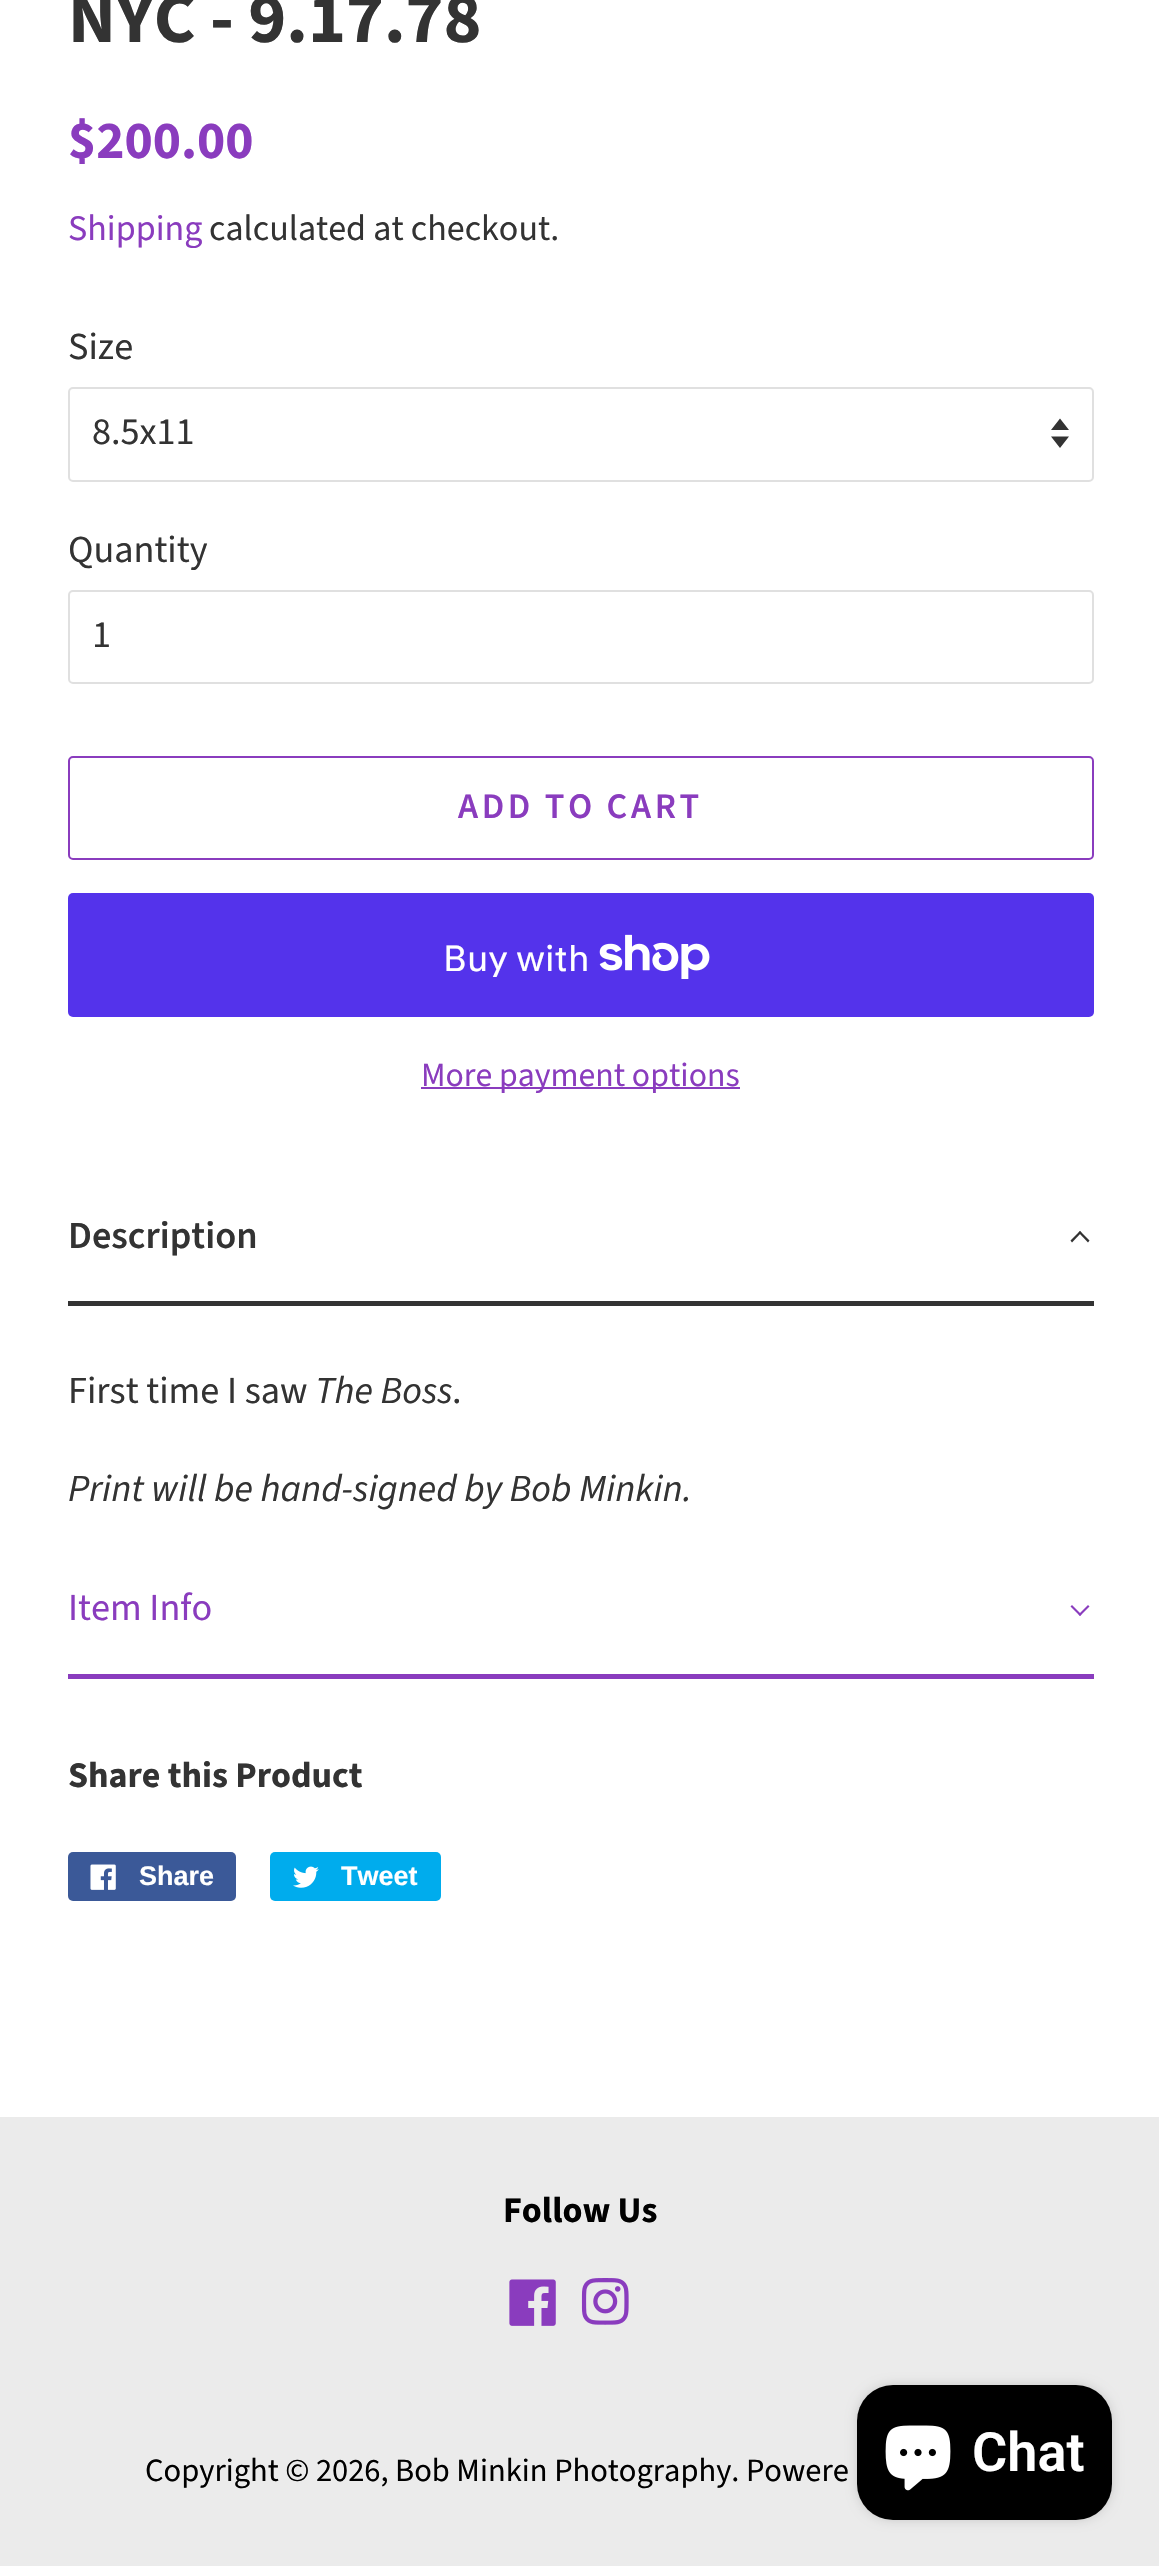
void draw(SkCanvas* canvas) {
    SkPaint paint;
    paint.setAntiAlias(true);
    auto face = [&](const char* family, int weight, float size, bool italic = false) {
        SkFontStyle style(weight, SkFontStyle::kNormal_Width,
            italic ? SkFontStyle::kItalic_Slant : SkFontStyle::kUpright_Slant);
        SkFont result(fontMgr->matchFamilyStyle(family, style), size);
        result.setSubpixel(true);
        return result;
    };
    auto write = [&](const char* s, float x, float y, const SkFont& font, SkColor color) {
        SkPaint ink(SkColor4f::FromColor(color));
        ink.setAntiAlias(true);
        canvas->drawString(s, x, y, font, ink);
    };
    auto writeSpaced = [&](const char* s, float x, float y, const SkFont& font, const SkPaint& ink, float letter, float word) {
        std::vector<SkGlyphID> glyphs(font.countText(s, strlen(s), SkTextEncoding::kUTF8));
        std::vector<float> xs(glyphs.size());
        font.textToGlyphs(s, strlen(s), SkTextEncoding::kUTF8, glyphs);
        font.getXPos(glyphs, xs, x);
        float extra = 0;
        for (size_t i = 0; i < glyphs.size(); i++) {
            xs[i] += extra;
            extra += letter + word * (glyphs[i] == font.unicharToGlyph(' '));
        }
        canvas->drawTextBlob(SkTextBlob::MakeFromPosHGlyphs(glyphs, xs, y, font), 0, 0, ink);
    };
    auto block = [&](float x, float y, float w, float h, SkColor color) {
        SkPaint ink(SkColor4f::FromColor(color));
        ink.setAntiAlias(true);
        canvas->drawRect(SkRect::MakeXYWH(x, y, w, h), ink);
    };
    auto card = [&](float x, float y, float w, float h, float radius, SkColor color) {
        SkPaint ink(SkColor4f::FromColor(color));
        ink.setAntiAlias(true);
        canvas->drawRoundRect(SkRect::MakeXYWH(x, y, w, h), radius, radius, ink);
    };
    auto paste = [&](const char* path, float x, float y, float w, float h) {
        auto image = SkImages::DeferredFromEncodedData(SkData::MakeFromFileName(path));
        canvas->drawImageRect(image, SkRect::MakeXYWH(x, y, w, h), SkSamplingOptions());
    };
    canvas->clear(SK_ColorWHITE);
    auto kFont1 = face("Source Sans Pro", 700, 72);
    write("NYC - 9.17.78", 68, 42, kFont1, SkColorSetRGB(51, 51, 51));
    auto kFont2 = face("Source Sans Pro", 700, 53.5f);
    write("$200.00", 68, 158, kFont2, SkColorSetRGB(138, 60, 190));
    auto kFont3 = face("Source Sans Pro", 400, 36);
    write("Shipping", 68, 240, kFont3, SkColorSetRGB(138, 60, 190));
    write("calculated at checkout.", 209, 240, kFont3, SkColorSetRGB(51, 51, 51));
    auto kFont4 = face("Source Sans Pro", 400, 38.25f);
    write("Size", 68, 359, kFont4, SkColorSetRGB(51, 51, 51));
    paint.setColor(SkColorSetRGB(51, 51, 51));
    canvas->drawPath(SkPathBuilder().moveTo(1051, 436.5f).lineTo(1060, 448).lineTo(1069, 436.5f).close().moveTo(1060, 418.5f).lineTo(1051, 430).lineTo(1069, 430).close().detach(), paint);
    paint.setStyle(SkPaint::kStroke_Style);
    paint.setStrokeWidth(2);
    paint.setColor(SkColorSetRGB(224, 224, 224));
    canvas->drawRoundRect(SkRect::MakeXYWH(69, 388, 1024, 93), 4, 4, paint);
    write("8.5x11", 92, 444, kFont4, SkColorSetRGB(51, 51, 51));
    write("Quantity", 68, 562, kFont4, SkColorSetRGB(51, 51, 51));
    canvas->drawRoundRect(SkRect::MakeXYWH(69, 591, 1024, 92), 4, 4, paint);
    write("1", 92, 647, kFont4, SkColorSetRGB(51, 51, 51));
    paint.setColor(SkColorSetRGB(138, 60, 190));
    canvas->drawRoundRect(SkRect::MakeXYWH(69, 757, 1024, 102), 4, 4, paint);
    auto kFont5 = face("Source Sans Pro", 600, 36);
    paint.setStyle(SkPaint::kFill_Style);
    writeSpaced("ADD TO CART", 458, 818, kFont5, paint, 3.6f, 0);
    card(68, 893, 1026, 124, 5, SkColorSetRGB(84, 51, 235));
    auto kFont6 = face("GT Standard", 400, 36);
    write("Buy with", 443, 971, kFont6, SK_ColorWHITE);
    paste("pic1.png", 599, 934, 111, 45);
    block(421, 1087, 319, 2, SkColorSetRGB(138, 60, 190));
    auto kFont7 = face("Source Sans Pro", 400, 33.75f);
    write("More payment options", 421, 1086, kFont7, SkColorSetRGB(138, 60, 190));
    block(68, 1301, 1026, 5, SkColorSetRGB(51, 51, 51));
    auto kFont8 = face("Source Sans Pro", 600, 38.25f);
    write("Description", 68, 1248, kFont8, SkColorSetRGB(51, 51, 51));
    paint.setColor(SkColorSetRGB(51, 51, 51));
    canvas->drawPath(SkPathBuilder().moveTo(1072, 1242.5f).lineTo(1070.5f, 1240.5f).lineTo(1080, 1231).lineTo(1081.5f, 1232.5f).close().detach(), paint);
    canvas->drawPath(SkPathBuilder().moveTo(1088, 1242.5f).lineTo(1078.5f, 1232.5f).lineTo(1080, 1231).lineTo(1089.5f, 1240.5f).close().detach(), paint);
    write("First time I saw", 68, 1403, kFont4, SkColorSetRGB(51, 51, 51));
    auto kFont9 = face("Source Sans Pro", 400, 38.25f, true);
    write("The Boss", 315, 1403, kFont9, SkColorSetRGB(51, 51, 51));
    write(".", 452, 1403, kFont4, SkColorSetRGB(51, 51, 51));
    write("Print will be hand-signed by Bob Minkin.", 68, 1501, kFont9, SkColorSetRGB(51, 51, 51));
    block(68, 1674, 1026, 5, SkColorSetRGB(138, 60, 190));
    write("Item Info", 68, 1620, kFont4, SkColorSetRGB(138, 60, 190));
    paint.setColor(SkColorSetRGB(138, 60, 190));
    canvas->drawPath(SkPathBuilder().moveTo(1088, 1605).lineTo(1089.5f, 1606.5f).lineTo(1080, 1616).lineTo(1078.5f, 1614.5f).close().detach(), paint);
    canvas->drawPath(SkPathBuilder().moveTo(1072, 1605).lineTo(1081.5f, 1614.5f).lineTo(1080, 1616).lineTo(1070.5f, 1606.5f).close().detach(), paint);
    auto kFont10 = face("Source Sans Pro", 700, 36);
    write("Share this Product", 68, 1787, kFont10, SkColorSetRGB(51, 51, 51));
    card(68, 1852, 168, 49, 5, SkColorSetRGB(59, 89, 152));
    paste("pic2.png", 90, 1864, 26, 26);
    auto kFont11 = face("Liberation Sans", 700, 27);
    write("Share", 139, 1885, kFont11, SK_ColorWHITE);
    card(270, 1852, 171, 49, 5, SkColorSetRGB(0, 172, 237));
    paste("pic3.png", 293, 1866, 26, 22);
    write("Tweet", 341, 1885, kFont11, SK_ColorWHITE);
    block(0, 2117, 1159, 449, SkColorSetRGB(235, 235, 235));
    write("Follow Us", 503, 2222, kFont10, SK_ColorBLACK);
    paste("pic4.png", 509, 2279, 47, 47);
    paste("pic5.png", 581, 2278, 48, 47);
    auto kFont12 = face("Source Sans Pro", 400, 32.5f);
    write("Copyright © 2026, Bob Minkin Photography. Powere", 145, 2481, kFont12, SK_ColorBLACK);
    paint.setColor(SkColorSetARGB(38, 0, 0, 0));
    paint.setMaskFilter(SkMaskFilter::MakeBlur(kNormal_SkBlurStyle, 5.5f));
    canvas->drawRoundRect(SkRect::MakeXYWH(857, 2385, 255, 135), 36, 36, paint);
    paint.setMaskFilter(nullptr);
    card(857, 2385, 255, 135, 36, SK_ColorBLACK);
    paste("pic6.png", 885, 2425, 66, 66);
    auto kFont13 = face("Roboto", 600, 54);
    write("Chat", 972, 2471, kFont13, SK_ColorWHITE);
}
